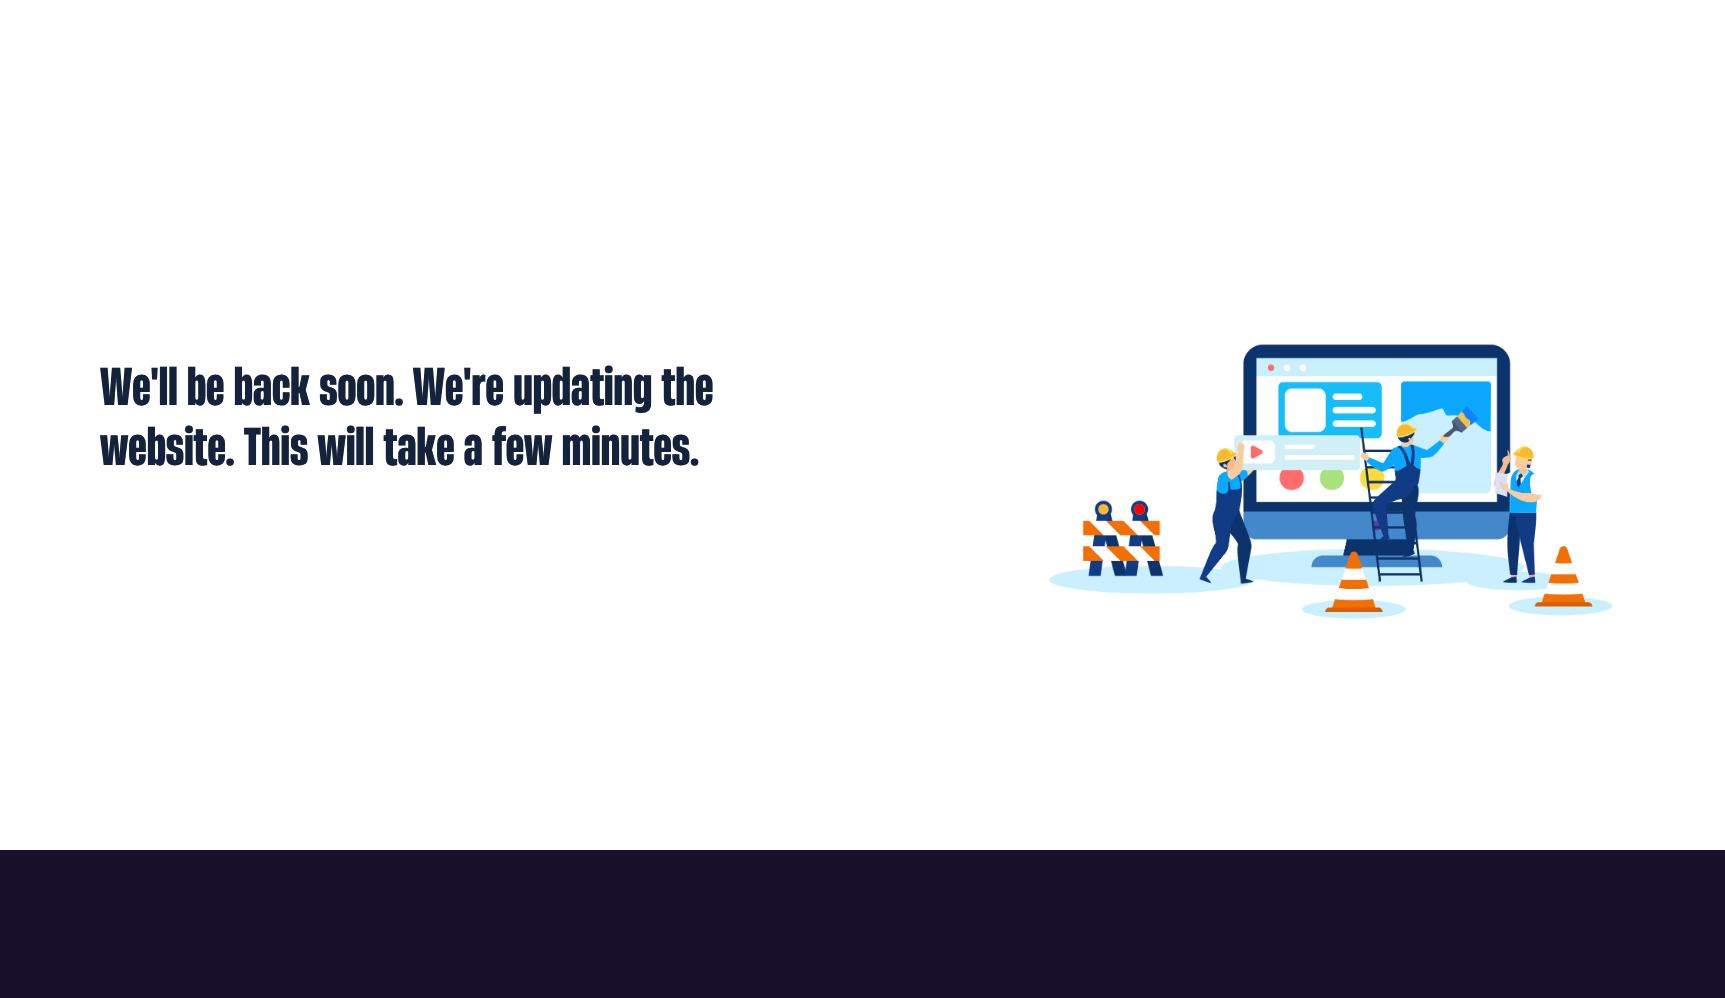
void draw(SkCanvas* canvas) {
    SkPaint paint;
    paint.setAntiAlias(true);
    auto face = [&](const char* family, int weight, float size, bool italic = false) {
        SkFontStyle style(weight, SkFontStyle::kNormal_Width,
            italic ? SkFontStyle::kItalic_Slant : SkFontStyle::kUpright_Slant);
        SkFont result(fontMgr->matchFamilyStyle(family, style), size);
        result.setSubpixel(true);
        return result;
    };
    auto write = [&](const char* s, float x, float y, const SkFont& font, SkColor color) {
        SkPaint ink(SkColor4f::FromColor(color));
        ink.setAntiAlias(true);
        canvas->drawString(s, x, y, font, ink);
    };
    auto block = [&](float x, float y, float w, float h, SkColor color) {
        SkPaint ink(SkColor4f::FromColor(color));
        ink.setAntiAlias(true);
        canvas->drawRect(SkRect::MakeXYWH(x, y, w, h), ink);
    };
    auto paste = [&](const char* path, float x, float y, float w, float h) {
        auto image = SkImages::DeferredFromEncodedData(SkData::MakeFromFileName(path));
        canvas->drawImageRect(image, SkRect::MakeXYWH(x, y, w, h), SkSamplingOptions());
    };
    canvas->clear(SkColorSetRGB(23, 16, 43));
    block(0, 0, 1725, 850, SK_ColorWHITE);
    auto kFont1 = face("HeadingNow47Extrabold", 800, 50);
    write("We'll be back soon. We're updating the", 100, 405, kFont1, SkColorSetRGB(20, 34, 59));
    write("website. This will take a few minutes.", 100, 465, kFont1, SkColorSetRGB(20, 34, 59));
    paste("pic1.png", 1049, 344, 564, 275);
}
